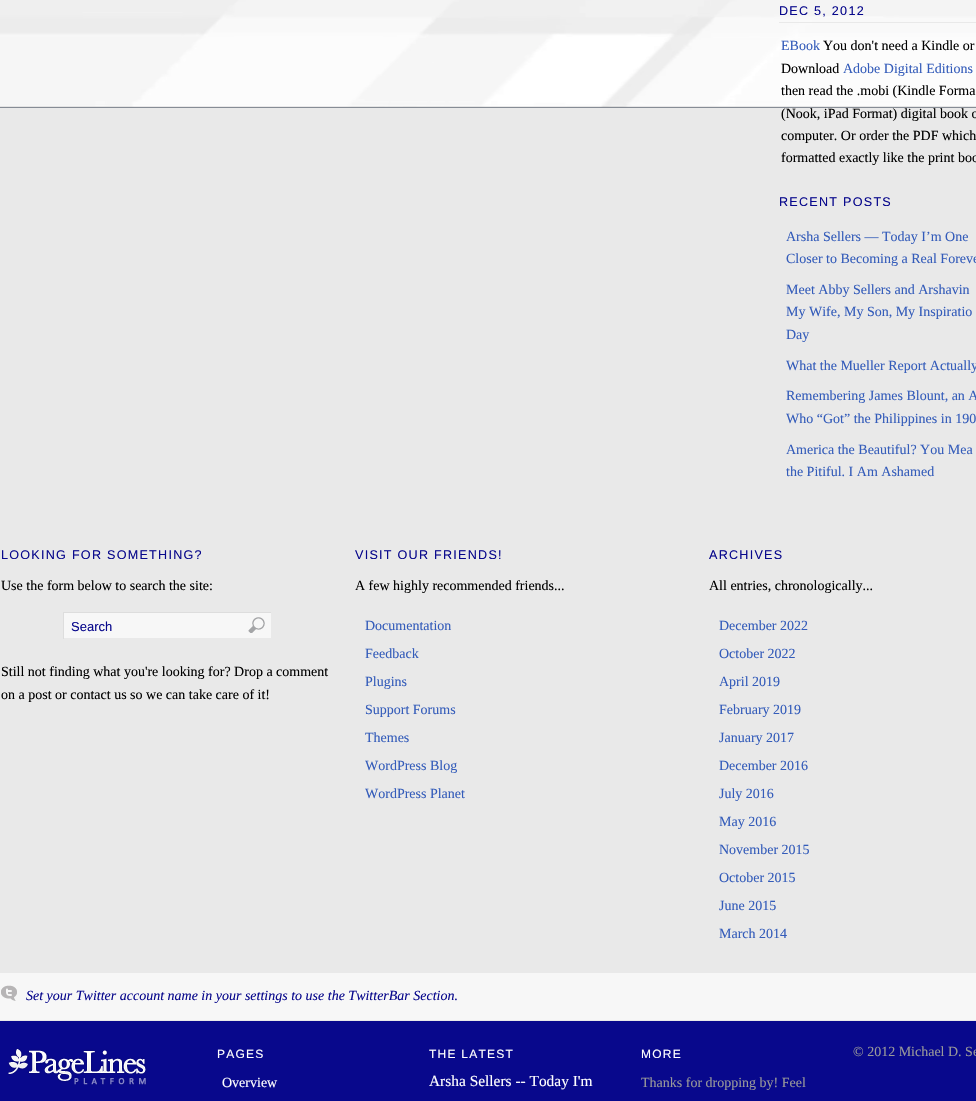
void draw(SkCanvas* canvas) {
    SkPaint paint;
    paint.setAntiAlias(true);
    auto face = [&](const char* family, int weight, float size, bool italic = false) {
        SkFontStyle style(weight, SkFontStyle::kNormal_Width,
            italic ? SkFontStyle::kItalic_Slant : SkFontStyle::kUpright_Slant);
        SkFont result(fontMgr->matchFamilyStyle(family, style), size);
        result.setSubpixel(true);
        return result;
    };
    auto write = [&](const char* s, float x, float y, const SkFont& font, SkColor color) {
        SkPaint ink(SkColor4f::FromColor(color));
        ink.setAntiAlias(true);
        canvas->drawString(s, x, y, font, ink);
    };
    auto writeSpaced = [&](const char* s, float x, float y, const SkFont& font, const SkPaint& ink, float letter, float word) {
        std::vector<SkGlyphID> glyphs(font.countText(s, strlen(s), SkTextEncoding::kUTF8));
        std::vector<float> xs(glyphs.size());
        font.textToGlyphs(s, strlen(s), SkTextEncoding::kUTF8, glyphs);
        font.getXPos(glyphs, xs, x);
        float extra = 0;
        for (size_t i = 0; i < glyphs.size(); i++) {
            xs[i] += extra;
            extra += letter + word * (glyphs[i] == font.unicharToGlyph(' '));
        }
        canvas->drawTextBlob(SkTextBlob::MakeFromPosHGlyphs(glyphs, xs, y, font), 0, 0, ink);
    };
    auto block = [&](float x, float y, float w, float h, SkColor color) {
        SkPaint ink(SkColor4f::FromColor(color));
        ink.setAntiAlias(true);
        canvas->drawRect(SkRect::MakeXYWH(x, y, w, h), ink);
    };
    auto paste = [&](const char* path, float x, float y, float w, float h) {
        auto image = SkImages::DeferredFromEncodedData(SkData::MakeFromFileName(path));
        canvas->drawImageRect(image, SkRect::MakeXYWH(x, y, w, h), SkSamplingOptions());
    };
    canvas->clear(SkColorSetRGB(8, 8, 140));
    block(0, 108, 976, 913, SkColorSetRGB(233, 233, 233));
    paste("pic1.png", 0, 0, 976, 108);
    block(779, 22, 197, 1, SkColorSetRGB(233, 233, 233));
    auto kFont1 = face("Liberation Sans", 400, 12.6f);
    paint.setColor(SkColorSetRGB(8, 8, 140));
    writeSpaced("DEC 5, 2012", 779, 15, kFont1, paint, 1.25f, 0);
    auto kFont2 = face("Liberation Serif", 400, 14);
    write("EBook", 781, 50, kFont2, SkColorSetRGB(52, 92, 186));
    write("You don't need a Kindle or", 823, 50, kFont2, SK_ColorBLACK);
    write("Download", 781, 73, kFont2, SK_ColorBLACK);
    write("Adobe Digital Editions", 843, 73, kFont2, SkColorSetRGB(52, 92, 186));
    write("then read the .mobi (Kindle Forma", 781, 95, kFont2, SK_ColorBLACK);
    write("(Nook, iPad Format) digital book o", 781, 118, kFont2, SK_ColorBLACK);
    write("computer. Or order the PDF which", 781, 140, kFont2, SK_ColorBLACK);
    write("formatted exactly like the print boo", 781, 162, kFont2, SK_ColorBLACK);
    writeSpaced("RECENT POSTS", 779, 206, kFont1, paint, 1.25f, 0);
    write("Arsha Sellers — Today I’m One", 786, 241, kFont2, SkColorSetRGB(52, 92, 186));
    write("Closer to Becoming a Real Foreve", 786, 263, kFont2, SkColorSetRGB(52, 92, 186));
    write("Meet Abby Sellers and Arshavin", 786, 294, kFont2, SkColorSetRGB(52, 92, 186));
    write("My Wife, My Son, My Inspiratio", 786, 316, kFont2, SkColorSetRGB(52, 92, 186));
    write("Day", 786, 339, kFont2, SkColorSetRGB(52, 92, 186));
    write("What the Mueller Report Actually", 786, 370, kFont2, SkColorSetRGB(52, 92, 186));
    write("Remembering James Blount, an A", 786, 400, kFont2, SkColorSetRGB(52, 92, 186));
    write("Who “Got” the Philippines in 190", 786, 423, kFont2, SkColorSetRGB(52, 92, 186));
    write("America the Beautiful? You Mea", 786, 454, kFont2, SkColorSetRGB(52, 92, 186));
    write("the Pitiful. I Am Ashamed", 786, 476, kFont2, SkColorSetRGB(52, 92, 186));
    writeSpaced("LOOKING FOR SOMETHING?", 1, 559, kFont1, paint, 1.25f, 0);
    write("Use the form below to search the site:", 1, 590, kFont2, SK_ColorBLACK);
    block(64, 613, 207, 25, SkColorSetRGB(247, 247, 247));
    block(63, 612, 209, 1, SkColorSetRGB(221, 221, 221));
    block(271, 612, 1, 1, SkColorSetRGB(233, 233, 233));
    block(63, 612, 1, 27, SkColorSetRGB(221, 221, 221));
    auto kFont3 = face("Liberation Sans", 400, 13);
    write("Search", 71, 631, kFont3, SkColorSetRGB(8, 8, 140));
    paste("pic2.png", 248, 617, 17, 16);
    write("Still not finding what you're looking for? Drop a comment", 1, 676, kFont2, SK_ColorBLACK);
    write("on a post or contact us so we can take care of it!", 1, 699, kFont2, SK_ColorBLACK);
    writeSpaced("VISIT OUR FRIENDS!", 355, 559, kFont1, paint, 1.25f, 0);
    write("A few highly recommended friends...", 355, 590, kFont2, SK_ColorBLACK);
    write("Documentation", 365, 630, kFont2, SkColorSetRGB(52, 92, 186));
    write("Feedback", 365, 658, kFont2, SkColorSetRGB(52, 92, 186));
    write("Plugins", 365, 686, kFont2, SkColorSetRGB(52, 92, 186));
    write("Support Forums", 365, 714, kFont2, SkColorSetRGB(52, 92, 186));
    write("Themes", 365, 742, kFont2, SkColorSetRGB(52, 92, 186));
    write("WordPress Blog", 365, 770, kFont2, SkColorSetRGB(52, 92, 186));
    write("WordPress Planet", 365, 798, kFont2, SkColorSetRGB(52, 92, 186));
    writeSpaced("ARCHIVES", 709, 559, kFont1, paint, 1.25f, 0);
    write("All entries, chronologically...", 709, 590, kFont2, SK_ColorBLACK);
    write("December 2022", 719, 630, kFont2, SkColorSetRGB(52, 92, 186));
    write("October 2022", 719, 658, kFont2, SkColorSetRGB(52, 92, 186));
    write("April 2019", 719, 686, kFont2, SkColorSetRGB(52, 92, 186));
    write("February 2019", 719, 714, kFont2, SkColorSetRGB(52, 92, 186));
    write("January 2017", 719, 742, kFont2, SkColorSetRGB(52, 92, 186));
    write("December 2016", 719, 770, kFont2, SkColorSetRGB(52, 92, 186));
    write("July 2016", 719, 798, kFont2, SkColorSetRGB(52, 92, 186));
    write("May 2016", 719, 826, kFont2, SkColorSetRGB(52, 92, 186));
    write("November 2015", 719, 854, kFont2, SkColorSetRGB(52, 92, 186));
    write("October 2015", 719, 882, kFont2, SkColorSetRGB(52, 92, 186));
    write("June 2015", 719, 910, kFont2, SkColorSetRGB(52, 92, 186));
    write("March 2014", 719, 938, kFont2, SkColorSetRGB(52, 92, 186));
    block(0, 973, 976, 47, SkColorSetRGB(247, 247, 247));
    paste("pic3.png", 1, 985, 16, 16);
    auto kFont4 = face("Liberation Serif", 400, 14, true);
    write("Set your Twitter account name in your settings to use the TwitterBar Section.", 26, 1000, kFont4, SkColorSetRGB(8, 8, 140));
    paste("pic4.png", 8, 1048, 139, 37);
    auto kFont5 = face("Liberation Sans", 400, 12);
    paint.setColor(SK_ColorWHITE);
    writeSpaced("PAGES", 217, 1058, kFont5, paint, 1.25f, 0);
    write("Overview", 222, 1087, kFont2, SK_ColorWHITE);
    writeSpaced("THE LATEST", 429, 1058, kFont5, paint, 1.25f, 0);
    auto kFont6 = face("Liberation Serif", 400, 15.4f);
    write("Arsha Sellers -- Today I'm", 429, 1086, kFont6, SK_ColorWHITE);
    writeSpaced("MORE", 641, 1058, kFont5, paint, 1.25f, 0);
    write("Thanks for dropping by! Feel", 641, 1087, kFont2, SkColorSetRGB(153, 153, 153));
    write("© 2012 Michael D. Se", 853, 1056, kFont2, SkColorSetRGB(153, 153, 153));
}
